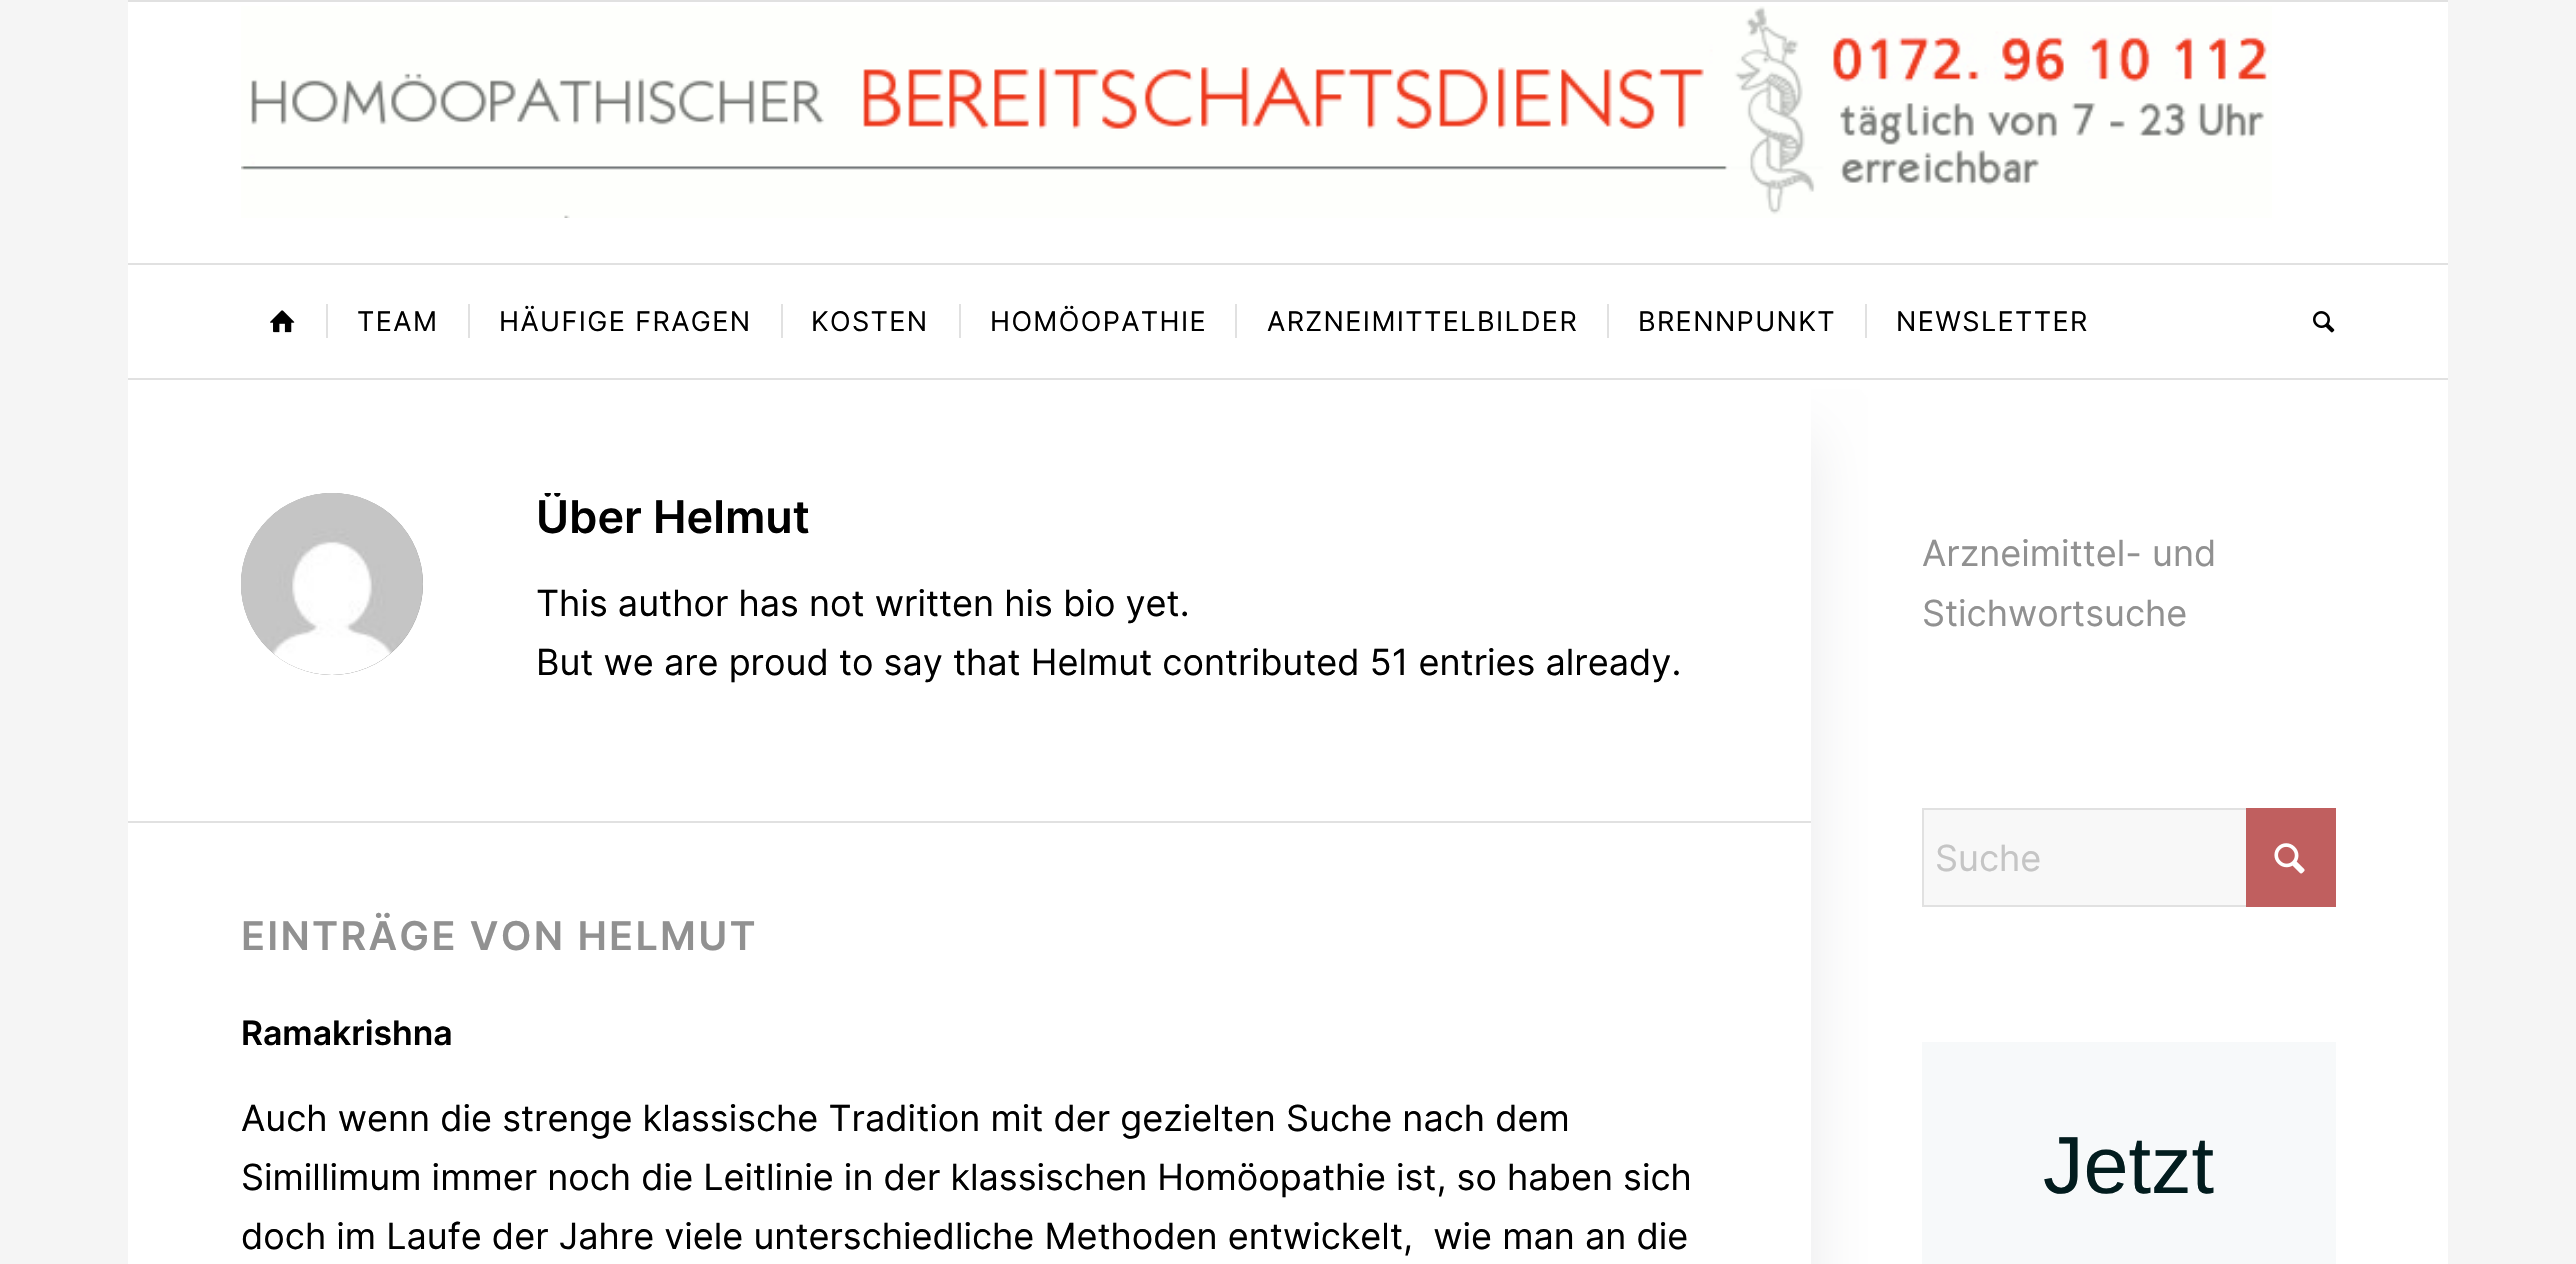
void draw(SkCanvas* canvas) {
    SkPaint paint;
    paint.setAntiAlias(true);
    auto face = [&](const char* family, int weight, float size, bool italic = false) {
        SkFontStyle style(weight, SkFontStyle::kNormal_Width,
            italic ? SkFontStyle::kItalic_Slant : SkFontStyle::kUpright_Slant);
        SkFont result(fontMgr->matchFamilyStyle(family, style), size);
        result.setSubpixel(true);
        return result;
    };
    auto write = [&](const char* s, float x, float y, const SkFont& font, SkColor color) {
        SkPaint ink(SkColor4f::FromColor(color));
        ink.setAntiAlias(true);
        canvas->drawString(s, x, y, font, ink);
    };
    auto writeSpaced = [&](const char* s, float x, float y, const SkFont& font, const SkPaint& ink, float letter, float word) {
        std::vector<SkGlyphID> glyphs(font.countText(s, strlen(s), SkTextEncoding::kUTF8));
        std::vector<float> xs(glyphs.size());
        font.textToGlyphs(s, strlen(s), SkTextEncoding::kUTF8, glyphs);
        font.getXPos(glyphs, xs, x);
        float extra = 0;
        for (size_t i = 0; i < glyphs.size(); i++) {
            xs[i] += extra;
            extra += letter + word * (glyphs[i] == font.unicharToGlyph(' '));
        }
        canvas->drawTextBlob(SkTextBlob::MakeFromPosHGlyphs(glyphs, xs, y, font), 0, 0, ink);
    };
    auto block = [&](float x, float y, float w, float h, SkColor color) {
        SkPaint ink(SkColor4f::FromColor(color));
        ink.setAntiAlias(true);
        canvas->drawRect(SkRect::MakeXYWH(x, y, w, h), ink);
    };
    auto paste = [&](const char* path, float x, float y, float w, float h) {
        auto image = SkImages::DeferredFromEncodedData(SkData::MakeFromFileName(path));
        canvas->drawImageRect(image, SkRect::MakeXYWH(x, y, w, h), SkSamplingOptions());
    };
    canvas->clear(SkColorSetRGB(245, 245, 245));
    block(128, 380, 2320, 884, SK_ColorWHITE);
    canvas->save();
    canvas->clipRect(SkRect::MakeXYWH(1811, 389, 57, 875));
    paint.setColor(SkColorSetRGB(233, 233, 235));
    paint.setMaskFilter(SkMaskFilter::MakeBlur(kNormal_SkBlurStyle, 28));
    canvas->drawRect(SkRect::MakeXYWH(353, 437, 1458, 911), paint);
    paint.setMaskFilter(nullptr);
    canvas->restore();
    block(128, 2, 2320, 376, SK_ColorWHITE);
    block(128, 0, 2320, 2, SkColorSetRGB(225, 225, 225));
    block(128, 378, 2320, 2, SkColorSetRGB(225, 225, 225));
    paste("pic1.png", 241, 6, 2031, 212);
    block(128, 263, 2320, 2, SkColorSetRGB(225, 225, 225));
    paste("pic2.png", 270, 310, 25, 23);
    auto kFont1 = face("Inter", 400, 27);
    paint.setColor(SK_ColorBLACK);
    writeSpaced("TEAM", 357, 331, kFont1, paint, 1.4f, 0);
    block(326, 304, 2, 34, SkColorSetRGB(225, 225, 225));
    writeSpaced("HÄUFIGE FRAGEN", 499, 331, kFont1, paint, 1.4f, 0);
    block(468, 304, 2, 34, SkColorSetRGB(225, 225, 225));
    writeSpaced("KOSTEN", 811, 331, kFont1, paint, 1.4f, 0);
    block(781, 304, 2, 34, SkColorSetRGB(225, 225, 225));
    writeSpaced("HOMÖOPATHIE", 990, 331, kFont1, paint, 1.4f, 0);
    block(959, 304, 2, 34, SkColorSetRGB(225, 225, 225));
    writeSpaced("ARZNEIMITTELBILDER", 1267, 331, kFont1, paint, 1.4f, 0);
    block(1235, 304, 2, 34, SkColorSetRGB(225, 225, 225));
    writeSpaced("BRENNPUNKT", 1638, 331, kFont1, paint, 1.4f, 0);
    block(1607, 304, 2, 34, SkColorSetRGB(225, 225, 225));
    writeSpaced("NEWSLETTER", 1896, 331, kFont1, paint, 1.4f, 0);
    block(1865, 304, 2, 34, SkColorSetRGB(225, 225, 225));
    paste("pic3.png", 2313, 311, 22, 22);
    paint.setColor(SkColorSetRGB(145, 145, 145));
    canvas->drawCircle(332, 584, 91, paint);
    paste("pic4.png", 241, 493, 182, 182);
    canvas->save();
    canvas->clipRect(SkRect::MakeXYWH(536, 493, 1163, 229));
    auto kFont2 = face("Inter", 600, 45);
    write("Über", 536, 533, kFont2, SK_ColorBLACK);
    canvas->restore();
    write("Helmut", 653, 533, kFont2, SK_ColorBLACK);
    auto kFont3 = face("Inter", 400, 36);
    write("This author has not written his bio yet.", 536, 616, kFont3, SK_ColorBLACK);
    write("But we are proud to say that Helmut contributed 51 entries already.", 536, 675, kFont3, SK_ColorBLACK);
    block(128, 821, 1683, 2, SkColorSetRGB(225, 225, 225));
    auto kFont4 = face("Inter", 600, 39.6f);
    writeSpaced("EINTRÄGE VON HELMUT", 241, 950, kFont4, paint, 2.25f, 0);
    auto kFont5 = face("Inter", 600, 33.75f);
    write("Ramakrishna", 241, 1045, kFont5, SK_ColorBLACK);
    write("Auch wenn die strenge klassische Tradition mit der gezielten Suche nach dem", 241, 1131, kFont3, SK_ColorBLACK);
    write("Simillimum immer noch die Leitlinie in der klassischen Homöopathie ist, so haben sich", 241, 1190, kFont3, SK_ColorBLACK);
    write("doch im Laufe der Jahre viele unterschiedliche Methoden entwickelt,  wie man an die", 241, 1249, kFont3, SK_ColorBLACK);
    write("Arzneimittel- und", 1922, 566, kFont3, SkColorSetRGB(145, 145, 145));
    write("Stichwortsuche", 1922, 626, kFont3, SkColorSetRGB(145, 145, 145));
    block(1924, 810, 322, 95, SkColorSetRGB(248, 248, 248));
    paint.setStyle(SkPaint::kStroke_Style);
    paint.setStrokeWidth(2);
    paint.setColor(SkColorSetRGB(225, 225, 225));
    canvas->drawRect(SkRect::MakeXYWH(1923, 809, 412, 97), paint);
    block(2246, 808, 90, 99, SkColorSetRGB(192, 95, 95));
    write("Suche", 1935, 871, kFont3, SkColorSetRGB(197, 197, 197));
    paste("pic5.png", 2274, 843, 31, 31);
    block(1922, 1042, 414, 222, SkColorSetRGB(247, 249, 250));
    auto kFont6 = face("Liberation Sans", 400, 81);
    write("Jetzt", 2043, 1193, kFont6, SkColorSetRGB(2, 28, 30));
}
